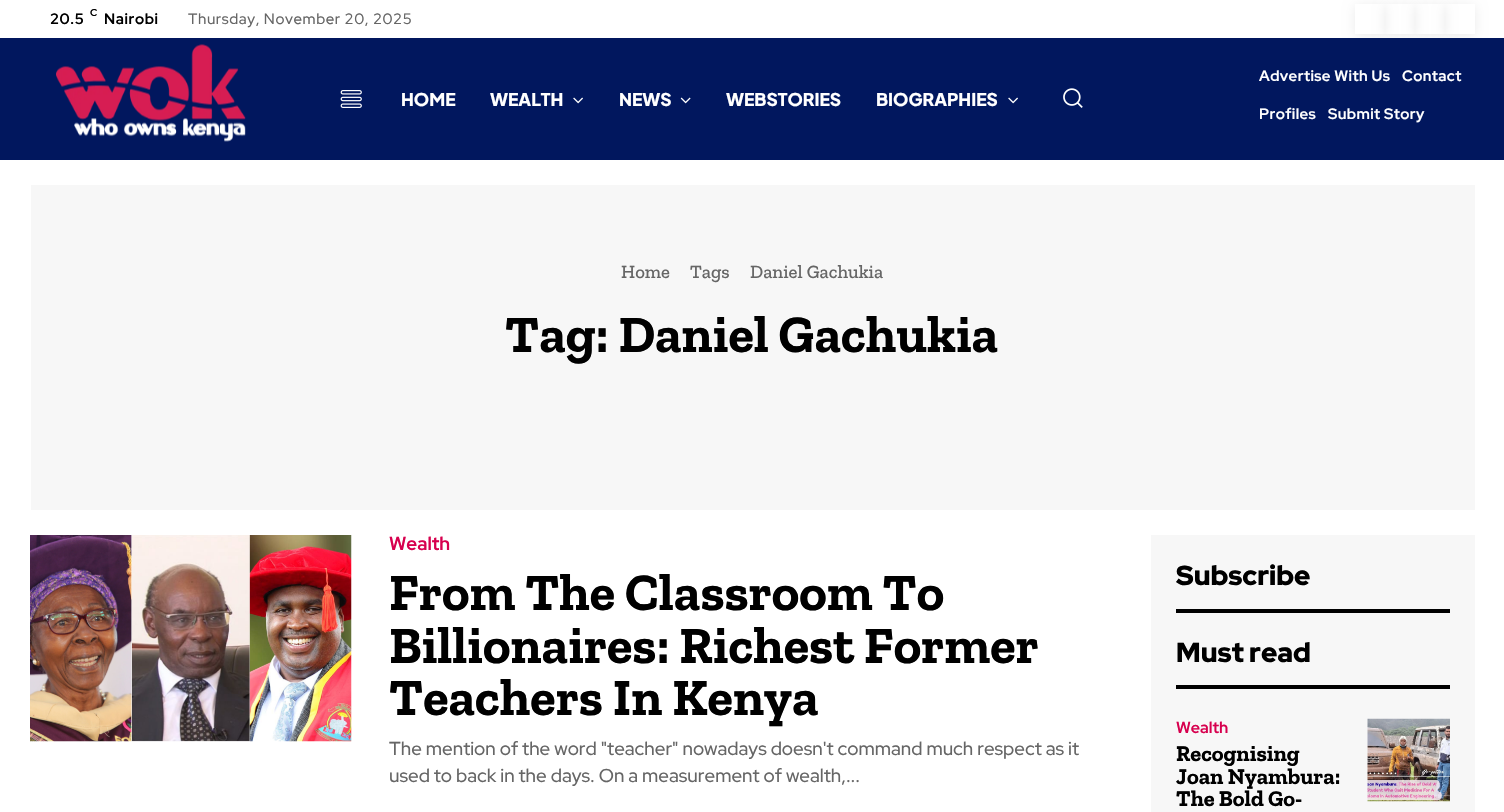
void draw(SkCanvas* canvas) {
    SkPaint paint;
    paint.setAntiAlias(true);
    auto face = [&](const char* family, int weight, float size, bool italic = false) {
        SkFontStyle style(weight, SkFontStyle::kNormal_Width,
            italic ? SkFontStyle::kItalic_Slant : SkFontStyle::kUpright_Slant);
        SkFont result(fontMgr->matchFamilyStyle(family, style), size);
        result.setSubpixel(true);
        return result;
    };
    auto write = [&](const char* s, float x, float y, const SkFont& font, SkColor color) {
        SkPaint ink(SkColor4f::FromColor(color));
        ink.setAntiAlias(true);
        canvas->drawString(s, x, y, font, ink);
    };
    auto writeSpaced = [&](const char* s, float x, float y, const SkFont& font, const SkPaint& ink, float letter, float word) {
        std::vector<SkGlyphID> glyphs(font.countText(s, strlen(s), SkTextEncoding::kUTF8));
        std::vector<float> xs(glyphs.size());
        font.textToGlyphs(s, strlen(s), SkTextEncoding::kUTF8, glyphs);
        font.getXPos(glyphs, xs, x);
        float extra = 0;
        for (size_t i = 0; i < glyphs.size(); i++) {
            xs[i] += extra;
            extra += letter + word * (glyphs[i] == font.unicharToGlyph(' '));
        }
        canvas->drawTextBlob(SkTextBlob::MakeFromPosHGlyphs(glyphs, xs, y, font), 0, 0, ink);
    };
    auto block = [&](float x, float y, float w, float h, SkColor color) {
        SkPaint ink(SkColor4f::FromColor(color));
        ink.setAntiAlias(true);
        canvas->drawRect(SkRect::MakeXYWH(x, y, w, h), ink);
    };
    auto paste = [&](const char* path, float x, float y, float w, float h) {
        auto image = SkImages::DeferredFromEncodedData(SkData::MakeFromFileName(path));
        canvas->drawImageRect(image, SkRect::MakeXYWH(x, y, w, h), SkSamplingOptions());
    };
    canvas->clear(SK_ColorWHITE);
    auto kFont1 = face("Red Hat Display", 700, 15);
    paint.setColor(SK_ColorBLACK);
    writeSpaced("20.5", 50, 24, kFont1, paint, 0.6f, 0);
    auto kFont2 = face("Red Hat Display", 700, 10);
    writeSpaced("C", 90, 16, kFont2, paint, 0.6f, 0);
    writeSpaced("Nairobi", 104, 24, kFont1, paint, 0.6f, 0);
    auto kFont3 = face("Red Hat Display", 500, 15);
    paint.setColor(SkColorSetRGB(102, 102, 102));
    writeSpaced("Thursday, November 20, 2025", 188, 24, kFont3, paint, 0.6f, 0);
    canvas->save();
    canvas->clipPath(SkPathBuilder(SkPathFillType::kEvenOdd).moveTo(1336, 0).lineTo(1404, 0).lineTo(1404, 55).lineTo(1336, 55).close().moveTo(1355, 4).lineTo(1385, 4).lineTo(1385, 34).lineTo(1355, 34).close().detach(), true);
    paint.setColor(SkColorSetARGB(20, 0, 0, 0));
    paint.setMaskFilter(SkMaskFilter::MakeBlur(kNormal_SkBlurStyle, 6));
    canvas->drawRect(SkRect::MakeXYWH(1355, 6, 30, 30), paint);
    paint.setMaskFilter(nullptr);
    canvas->restore();
    canvas->save();
    canvas->clipPath(SkPathBuilder(SkPathFillType::kEvenOdd).moveTo(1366, 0).lineTo(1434, 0).lineTo(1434, 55).lineTo(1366, 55).close().moveTo(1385, 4).lineTo(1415, 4).lineTo(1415, 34).lineTo(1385, 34).close().detach(), true);
    paint.setMaskFilter(SkMaskFilter::MakeBlur(kNormal_SkBlurStyle, 6));
    canvas->drawRect(SkRect::MakeXYWH(1385, 6, 30, 30), paint);
    paint.setMaskFilter(nullptr);
    canvas->restore();
    canvas->save();
    canvas->clipPath(SkPathBuilder(SkPathFillType::kEvenOdd).moveTo(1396, 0).lineTo(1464, 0).lineTo(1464, 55).lineTo(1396, 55).close().moveTo(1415, 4).lineTo(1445, 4).lineTo(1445, 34).lineTo(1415, 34).close().detach(), true);
    paint.setMaskFilter(SkMaskFilter::MakeBlur(kNormal_SkBlurStyle, 6));
    canvas->drawRect(SkRect::MakeXYWH(1415, 6, 30, 30), paint);
    paint.setMaskFilter(nullptr);
    canvas->restore();
    canvas->save();
    canvas->clipPath(SkPathBuilder(SkPathFillType::kEvenOdd).moveTo(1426, 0).lineTo(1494, 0).lineTo(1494, 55).lineTo(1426, 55).close().moveTo(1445, 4).lineTo(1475, 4).lineTo(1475, 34).lineTo(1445, 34).close().detach(), true);
    paint.setMaskFilter(SkMaskFilter::MakeBlur(kNormal_SkBlurStyle, 6));
    canvas->drawRect(SkRect::MakeXYWH(1445, 6, 30, 30), paint);
    paint.setMaskFilter(nullptr);
    canvas->restore();
    block(0, 38, 1504, 122, SkColorSetRGB(1, 23, 94));
    paste("pic1.png", 56, 44, 190, 98);
    paste("pic2.png", 340, 90, 22, 18);
    auto kFont4 = face("Plus Jakarta Sans", 800, 17.5f);
    write("HOME", 401, 106, kFont4, SK_ColorWHITE);
    write("WEALTH", 490, 106, kFont4, SK_ColorWHITE);
    paste("pic3.png", 573, 97, 10, 7);
    write("NEWS", 619, 106, kFont4, SK_ColorWHITE);
    paste("pic4.png", 680, 97, 11, 7);
    write("WEBSTORIES", 726, 106, kFont4, SK_ColorWHITE);
    write("BIOGRAPHIES", 876, 106, kFont4, SK_ColorWHITE);
    paste("pic3.png", 1008, 97, 10, 7);
    paste("pic5.png", 1063, 88, 20, 20);
    paint.setColor(SK_ColorWHITE);
    writeSpaced("Advertise With Us", 1259, 81, kFont1, paint, 0.4f, 0);
    writeSpaced("Contact", 1402, 81, kFont1, paint, 0.4f, 0);
    writeSpaced("Profiles", 1259, 119, kFont1, paint, 0.4f, 0);
    writeSpaced("Submit Story", 1328, 119, kFont1, paint, 0.4f, 0);
    block(31, 185, 1444, 325, SkColorSetRGB(247, 247, 247));
    auto kFont5 = face("Zilla Slab", 500, 18.75f);
    write("Home", 621, 278, kFont5, SkColorSetRGB(102, 102, 102));
    write("Tags", 690, 278, kFont5, SkColorSetRGB(102, 102, 102));
    write("Daniel Gachukia", 750, 278, kFont5, SkColorSetRGB(102, 102, 102));
    auto kFont6 = face("Zilla Slab", 700, 52.5f);
    write("Tag: Daniel Gachukia", 505, 352, kFont6, SK_ColorBLACK);
    paste("pic6.png", 30, 535, 322, 207);
    auto kFont7 = face("Red Hat Display", 700, 18.75f);
    write("Wealth", 389, 550, kFont7, SkColorSetRGB(215, 0, 78));
    write("From The Classroom To", 389, 610, kFont6, SK_ColorBLACK);
    write("Billionaires: Richest Former", 389, 663, kFont6, SK_ColorBLACK);
    write("Teachers In Kenya", 389, 715, kFont6, SK_ColorBLACK);
    auto kFont8 = face("Red Hat Display", 500, 18.75f);
    write("The mention of the word \"teacher\" nowadays doesn't command much respect as it", 389, 755, kFont8, SkColorSetRGB(102, 102, 102));
    write("used to back in the days. On a measurement of wealth,...", 389, 782, kFont8, SkColorSetRGB(102, 102, 102));
    block(1151, 535, 324, 277, SkColorSetRGB(247, 247, 247));
    block(1176, 609, 274, 4, SK_ColorBLACK);
    auto kFont9 = face("Red Hat Display", 900, 27.5f);
    write("Subscribe", 1176, 585, kFont9, SK_ColorBLACK);
    block(1176, 685, 274, 4, SK_ColorBLACK);
    write("Must read", 1176, 662, kFont9, SK_ColorBLACK);
    auto kFont10 = face("Red Hat Display", 700, 16);
    write("Wealth", 1176, 733, kFont10, SkColorSetRGB(215, 0, 78));
    auto kFont11 = face("Zilla Slab", 700, 22.5f);
    write("Recognising", 1176, 761, kFont11, SK_ColorBLACK);
    write("Joan Nyambura:", 1176, 784, kFont11, SK_ColorBLACK);
    write("The Bold Go-", 1176, 806, kFont11, SK_ColorBLACK);
    paste("pic7.png", 1367, 718, 83, 84);
}
